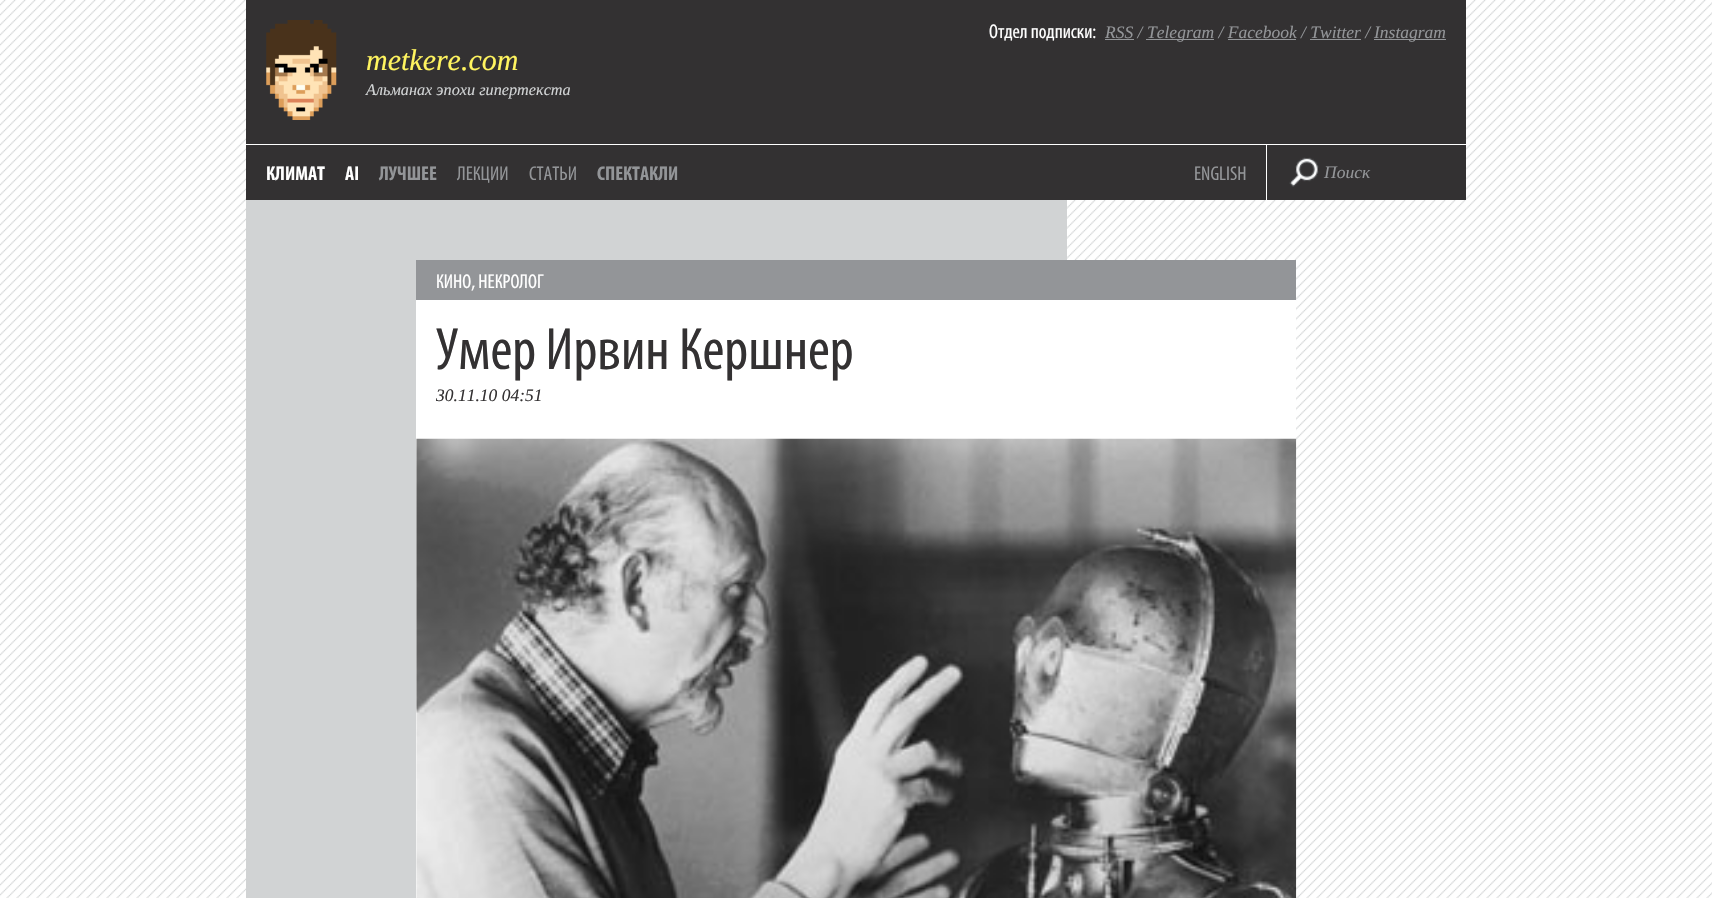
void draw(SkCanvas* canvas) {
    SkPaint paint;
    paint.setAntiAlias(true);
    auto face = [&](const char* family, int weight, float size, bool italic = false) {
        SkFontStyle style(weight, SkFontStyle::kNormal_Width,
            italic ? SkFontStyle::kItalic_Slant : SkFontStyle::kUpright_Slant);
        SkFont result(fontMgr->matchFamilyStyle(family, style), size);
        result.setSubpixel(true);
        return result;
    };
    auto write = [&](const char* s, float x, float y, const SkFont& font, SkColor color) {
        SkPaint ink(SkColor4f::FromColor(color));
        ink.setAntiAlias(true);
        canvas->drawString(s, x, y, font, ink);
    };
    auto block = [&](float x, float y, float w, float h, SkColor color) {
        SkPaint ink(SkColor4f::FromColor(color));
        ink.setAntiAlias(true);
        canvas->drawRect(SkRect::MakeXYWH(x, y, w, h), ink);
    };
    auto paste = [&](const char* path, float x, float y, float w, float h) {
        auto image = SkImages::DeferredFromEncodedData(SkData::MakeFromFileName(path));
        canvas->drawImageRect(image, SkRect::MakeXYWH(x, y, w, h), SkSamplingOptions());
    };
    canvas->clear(SK_ColorWHITE);
    paste("pic1.png", 0, 0, 1712, 898);
    block(246, 200, 821, 698, SkColorSetRGB(209, 211, 212));
    block(246, 0, 1220, 200, SkColorSetRGB(51, 49, 50));
    paste("pic2.png", 266, 20, 71, 100);
    auto kFont1 = face("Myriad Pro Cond", 400, 20);
    write("Отдел подписки:", 989, 38, kFont1, SK_ColorWHITE);
    auto kFont2 = face("Liberation Serif", 400, 17.5f, true);
    write("RSS /", 1105, 38, kFont2, SkColorSetRGB(147, 149, 152));
    block(1105, 39, 29, 1, SkColorSetRGB(147, 149, 152));
    block(1146, 39, 68, 1, SkColorSetRGB(147, 149, 152));
    write("Telegram / Facebook / Twitter /", 1147, 38, kFont2, SkColorSetRGB(147, 149, 152));
    block(1374, 39, 72, 1, SkColorSetRGB(147, 149, 152));
    write("Instagram", 1374, 38, kFont2, SkColorSetRGB(147, 149, 152));
    block(1228, 39, 68, 1, SkColorSetRGB(147, 149, 152));
    block(1310, 39, 51, 1, SkColorSetRGB(147, 149, 152));
    auto kFont3 = face("Liberation Serif", 400, 30, true);
    write("metkere.com", 366, 70, kFont3, SkColorSetRGB(255, 244, 95));
    auto kFont4 = face("Liberation Serif", 400, 16.25f, true);
    write("Альманах эпохи гипертекста", 366, 95, kFont4, SkColorSetRGB(209, 211, 212));
    block(246, 144, 1220, 1, SK_ColorWHITE);
    auto kFont5 = face("Myriad Pro Cond", 700, 20);
    write("КЛИМАТ", 266, 180, kFont5, SK_ColorWHITE);
    write("AI", 345, 180, kFont5, SK_ColorWHITE);
    write("ЛУЧШЕЕ", 379, 180, kFont5, SkColorSetRGB(147, 149, 152));
    write("ЛЕКЦИИ", 457, 180, kFont1, SkColorSetRGB(147, 149, 152));
    write("СТАТЬИ", 529, 180, kFont1, SkColorSetRGB(147, 149, 152));
    write("СПЕКТАКЛИ", 597, 180, kFont5, SkColorSetRGB(147, 149, 152));
    write("ENGLISH", 1194, 180, kFont1, SkColorSetRGB(147, 149, 152));
    block(1266, 145, 1, 55, SK_ColorWHITE);
    paste("pic3.png", 1289, 157, 30, 30);
    write("Поиск", 1324, 178, kFont2, SkColorSetRGB(147, 149, 152));
    block(416, 300, 880, 598, SK_ColorWHITE);
    block(416, 260, 880, 40, SkColorSetRGB(147, 149, 152));
    write("КИНО, НЕКРОЛОГ", 436, 288, kFont1, SK_ColorWHITE);
    auto kFont6 = face("Myriad Pro Cond", 400, 60);
    write("Умер Ирвин Кершнер", 436, 369, kFont6, SkColorSetRGB(51, 49, 50));
    write("30.11.10 04:51", 436, 401, kFont2, SkColorSetRGB(51, 49, 50));
    paste("pic4.png", 416, 438, 881, 460);
}
